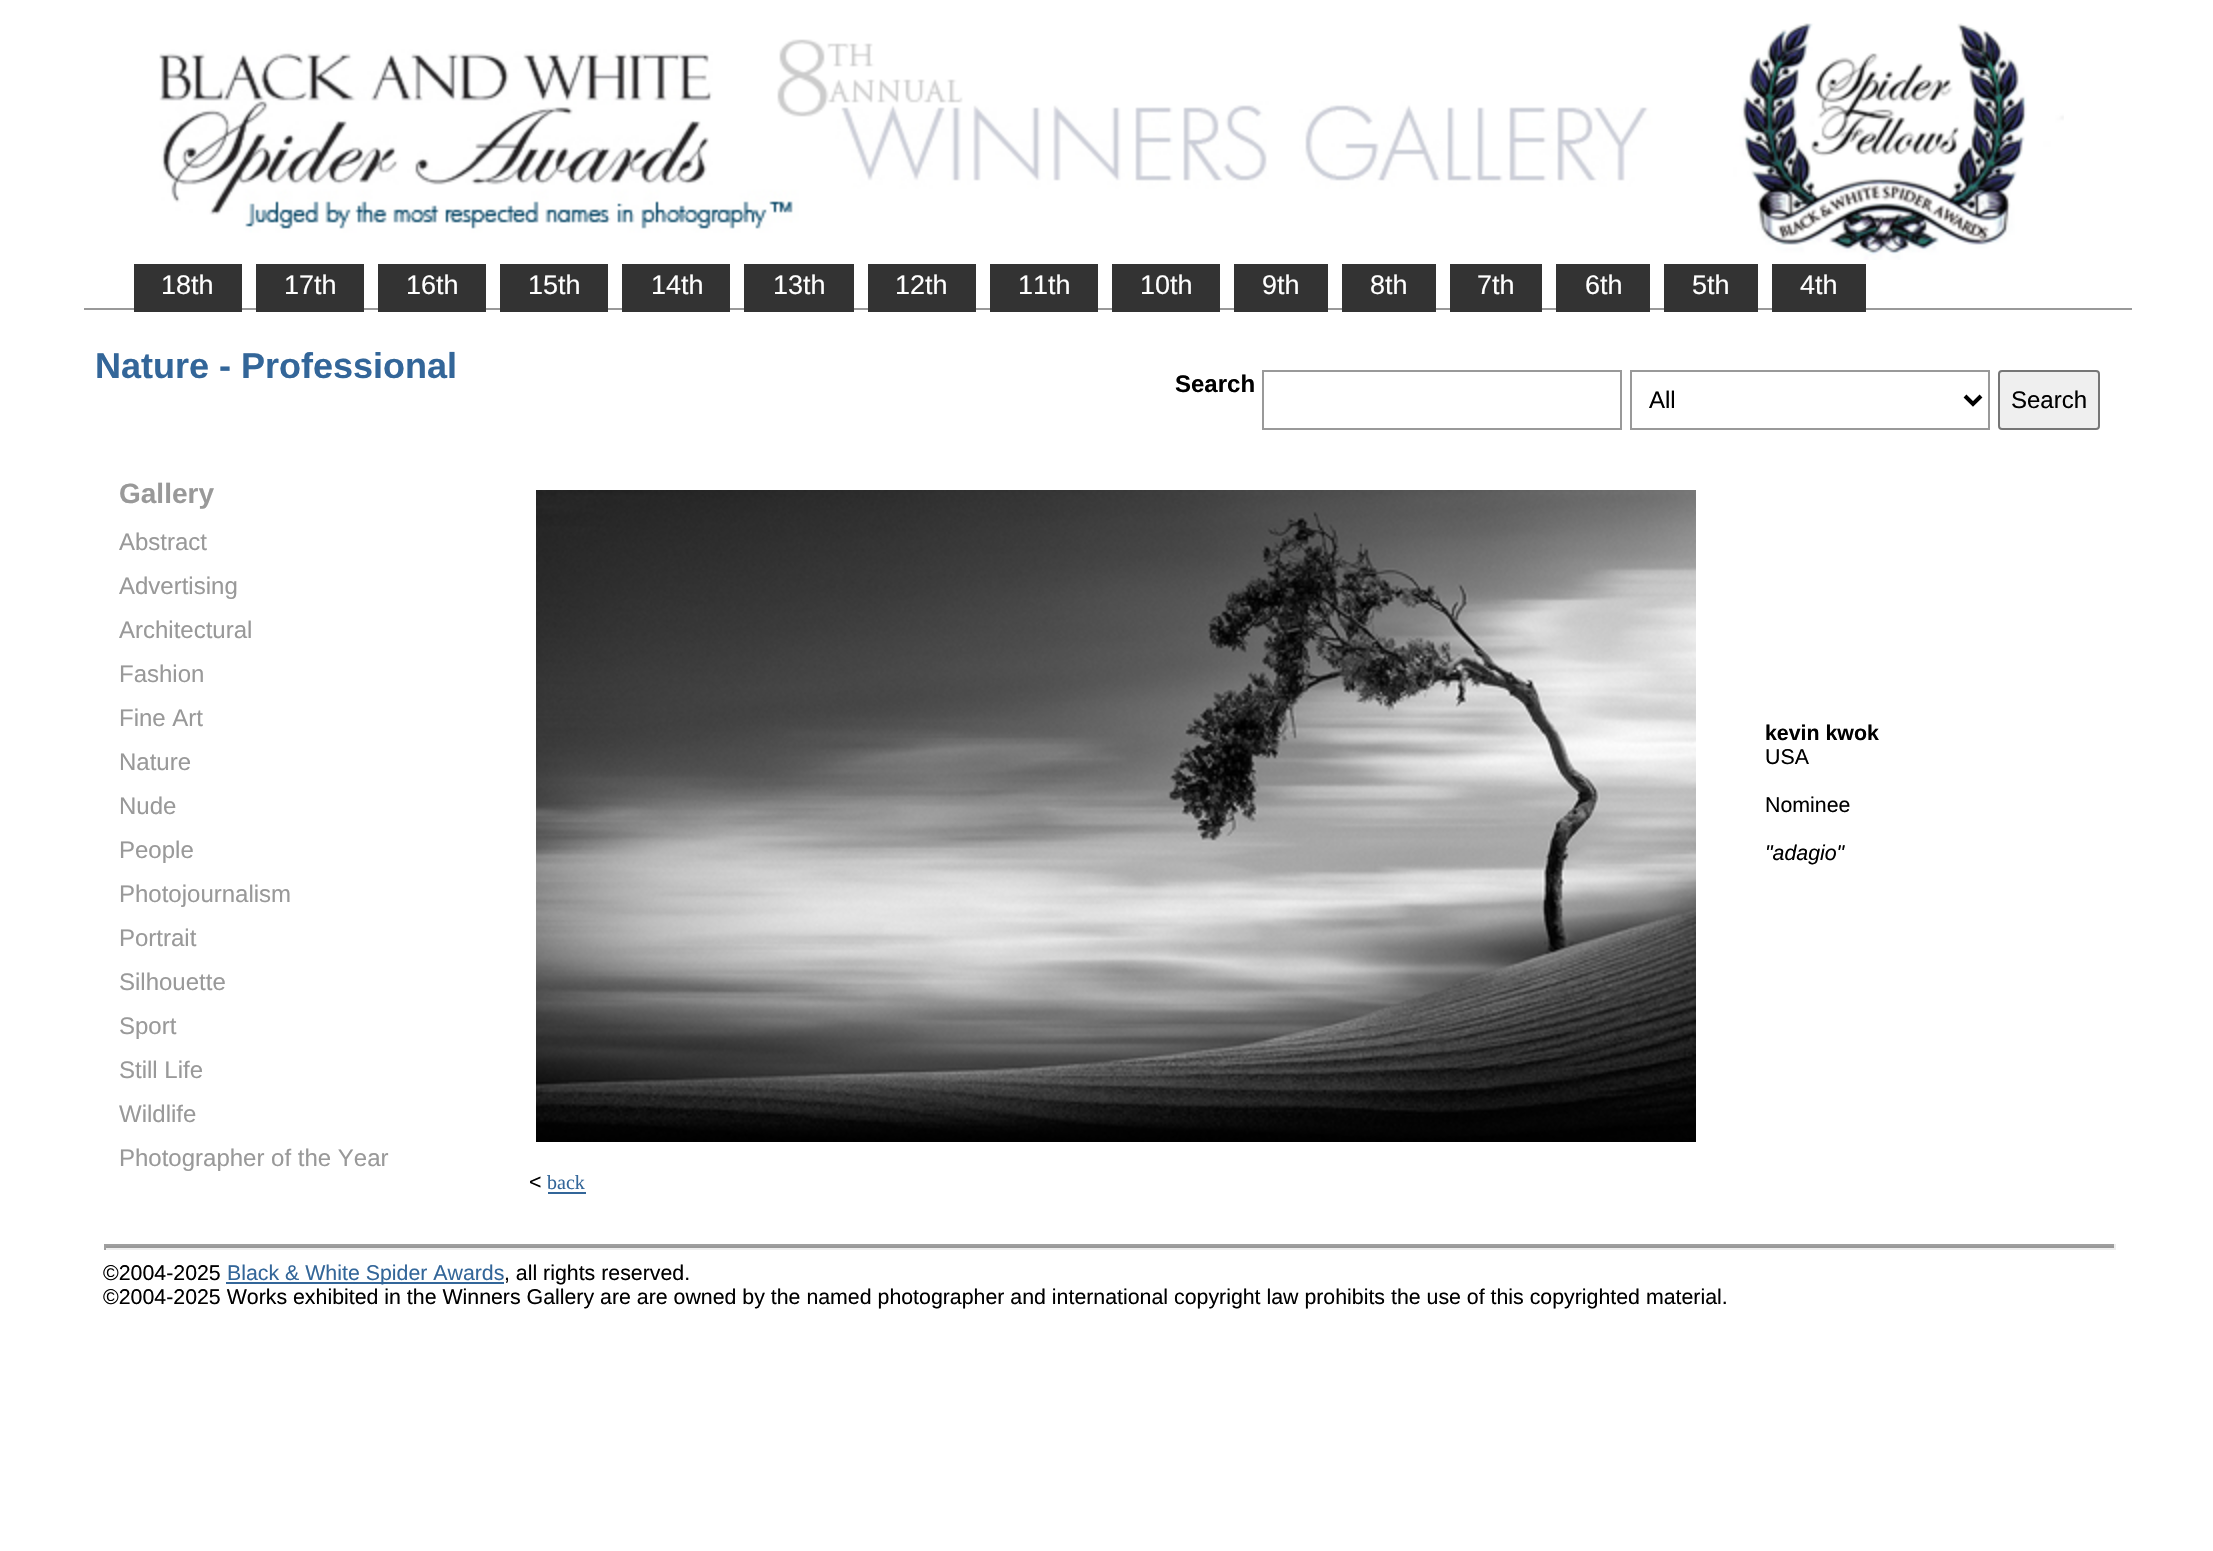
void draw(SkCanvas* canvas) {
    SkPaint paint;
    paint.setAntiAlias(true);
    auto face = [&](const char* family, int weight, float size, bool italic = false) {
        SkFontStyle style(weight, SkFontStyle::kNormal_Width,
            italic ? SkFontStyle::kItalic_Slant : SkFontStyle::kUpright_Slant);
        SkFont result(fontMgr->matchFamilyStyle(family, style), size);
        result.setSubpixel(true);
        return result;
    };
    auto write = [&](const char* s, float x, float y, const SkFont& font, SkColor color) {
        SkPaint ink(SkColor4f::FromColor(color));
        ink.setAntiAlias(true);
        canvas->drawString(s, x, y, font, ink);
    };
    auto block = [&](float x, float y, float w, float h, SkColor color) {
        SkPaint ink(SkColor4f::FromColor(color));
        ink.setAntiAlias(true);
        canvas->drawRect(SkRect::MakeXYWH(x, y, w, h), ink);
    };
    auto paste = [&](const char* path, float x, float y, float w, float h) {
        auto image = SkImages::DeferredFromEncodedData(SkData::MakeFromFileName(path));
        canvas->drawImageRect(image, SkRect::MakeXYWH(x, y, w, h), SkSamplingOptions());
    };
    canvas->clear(SK_ColorWHITE);
    paste("pic1.png", 159, 23, 1905, 237);
    block(84, 308, 2048, 2, SkColorSetRGB(153, 153, 153));
    block(134, 264, 108, 48, SkColorSetRGB(51, 51, 51));
    auto kFont1 = face("Liberation Sans", 400, 27);
    write("18th", 161, 294, kFont1, SK_ColorWHITE);
    block(256, 264, 108, 48, SkColorSetRGB(51, 51, 51));
    write("17th", 284, 294, kFont1, SK_ColorWHITE);
    block(378, 264, 108, 48, SkColorSetRGB(51, 51, 51));
    write("16th", 406, 294, kFont1, SK_ColorWHITE);
    block(500, 264, 108, 48, SkColorSetRGB(51, 51, 51));
    write("15th", 528, 294, kFont1, SK_ColorWHITE);
    block(622, 264, 108, 48, SkColorSetRGB(51, 51, 51));
    write("14th", 651, 294, kFont1, SK_ColorWHITE);
    block(744, 264, 110, 48, SkColorSetRGB(51, 51, 51));
    write("13th", 773, 294, kFont1, SK_ColorWHITE);
    block(868, 264, 108, 48, SkColorSetRGB(51, 51, 51));
    write("12th", 895, 294, kFont1, SK_ColorWHITE);
    block(990, 264, 108, 48, SkColorSetRGB(51, 51, 51));
    write("11th", 1018, 294, kFont1, SK_ColorWHITE);
    block(1112, 264, 108, 48, SkColorSetRGB(51, 51, 51));
    write("10th", 1140, 294, kFont1, SK_ColorWHITE);
    block(1234, 264, 94, 48, SkColorSetRGB(51, 51, 51));
    write("9th", 1262, 294, kFont1, SK_ColorWHITE);
    block(1342, 264, 94, 48, SkColorSetRGB(51, 51, 51));
    write("8th", 1370, 294, kFont1, SK_ColorWHITE);
    block(1450, 264, 92, 48, SkColorSetRGB(51, 51, 51));
    write("7th", 1477, 294, kFont1, SK_ColorWHITE);
    block(1556, 264, 94, 48, SkColorSetRGB(51, 51, 51));
    write("6th", 1585, 294, kFont1, SK_ColorWHITE);
    block(1664, 264, 94, 48, SkColorSetRGB(51, 51, 51));
    write("5th", 1692, 294, kFont1, SK_ColorWHITE);
    block(1772, 264, 94, 48, SkColorSetRGB(51, 51, 51));
    write("4th", 1800, 294, kFont1, SK_ColorWHITE);
    auto kFont2 = face("Liberation Sans", 700, 36);
    write("Nature - Professional", 95, 378, kFont2, SkColorSetRGB(51, 102, 153));
    auto kFont3 = face("Liberation Sans", 700, 24);
    write("Search", 1175, 392, kFont3, SK_ColorBLACK);
    paint.setStyle(SkPaint::kStroke_Style);
    paint.setStrokeWidth(2);
    paint.setColor(SkColorSetRGB(153, 153, 153));
    canvas->drawRect(SkRect::MakeXYWH(1263, 371, 358, 58), paint);
    canvas->drawRect(SkRect::MakeXYWH(1631, 371, 358, 58), paint);
    paint.setStrokeWidth(4);
    paint.setColor(SK_ColorBLACK);
    canvas->drawPath(SkPathBuilder().moveTo(1965, 396).lineTo(1973, 404).lineTo(1981, 396).detach(), paint);
    auto kFont4 = face("Liberation Sans", 400, 24);
    write("All", 1649, 408, kFont4, SK_ColorBLACK);
    paint.setStyle(SkPaint::kFill_Style);
    paint.setColor(SkColorSetRGB(239, 239, 239));
    canvas->drawRoundRect(SkRect::MakeXYWH(1999, 371, 100, 58), 3, 3, paint);
    paint.setStyle(SkPaint::kStroke_Style);
    paint.setStrokeWidth(2);
    paint.setColor(SkColorSetRGB(118, 118, 118));
    canvas->drawRoundRect(SkRect::MakeXYWH(1999, 371, 100, 58), 3, 3, paint);
    write("Search", 2011, 408, kFont4, SK_ColorBLACK);
    auto kFont5 = face("Liberation Sans", 700, 28);
    write("Gallery", 119, 503, kFont5, SkColorSetRGB(153, 153, 153));
    write("Abstract", 119, 550, kFont4, SkColorSetRGB(153, 153, 153));
    write("Advertising", 119, 594, kFont4, SkColorSetRGB(153, 153, 153));
    write("Architectural", 119, 638, kFont4, SkColorSetRGB(153, 153, 153));
    write("Fashion", 119, 682, kFont4, SkColorSetRGB(153, 153, 153));
    write("Fine Art", 119, 726, kFont4, SkColorSetRGB(153, 153, 153));
    write("Nature", 119, 770, kFont4, SkColorSetRGB(153, 153, 153));
    write("Nude", 119, 814, kFont4, SkColorSetRGB(153, 153, 153));
    write("People", 119, 858, kFont4, SkColorSetRGB(153, 153, 153));
    write("Photojournalism", 119, 902, kFont4, SkColorSetRGB(153, 153, 153));
    write("Portrait", 119, 946, kFont4, SkColorSetRGB(153, 153, 153));
    write("Silhouette", 119, 990, kFont4, SkColorSetRGB(153, 153, 153));
    write("Sport", 119, 1034, kFont4, SkColorSetRGB(153, 153, 153));
    write("Still Life", 119, 1078, kFont4, SkColorSetRGB(153, 153, 153));
    write("Wildlife", 119, 1122, kFont4, SkColorSetRGB(153, 153, 153));
    write("Photographer of the Year", 119, 1166, kFont4, SkColorSetRGB(153, 153, 153));
    paste("pic2.png", 536, 490, 1160, 652);
    auto kFont6 = face("Liberation Sans", 700, 21.33f);
    write("kevin kwok", 1765, 740, kFont6, SK_ColorBLACK);
    auto kFont7 = face("Liberation Sans", 400, 21.33f);
    write("USA", 1765, 764, kFont7, SK_ColorBLACK);
    write("Nominee", 1765, 812, kFont7, SK_ColorBLACK);
    auto kFont8 = face("Liberation Sans", 400, 21.33f, true);
    write("\"adagio\"", 1765, 860, kFont8, SK_ColorBLACK);
    write("<", 529, 1189, kFont7, SK_ColorBLACK);
    auto kFont9 = face("Liberation Serif", 400, 20);
    write("back", 547, 1189, kFont9, SkColorSetRGB(51, 102, 153));
    block(548, 1192, 38, 2, SkColorSetRGB(51, 102, 153));
    block(104, 1246, 2012, 2, SkColorSetRGB(153, 153, 153));
    block(104, 1244, 2012, 2, SkColorSetRGB(159, 159, 159));
    block(2114, 1244, 2, 6, SkColorSetRGB(238, 238, 238));
    block(104, 1248, 2012, 2, SkColorSetRGB(238, 238, 238));
    block(104, 1244, 2, 6, SkColorSetRGB(159, 159, 159));
    write("©2004-2025", 103, 1280, kFont7, SK_ColorBLACK);
    block(226, 1282, 278, 2, SkColorSetRGB(51, 102, 153));
    write("Black & White Spider Awards", 227, 1280, kFont7, SkColorSetRGB(51, 102, 153));
    write(", all rights reserved.", 504, 1280, kFont7, SK_ColorBLACK);
    write("©2004-2025 Works exhibited in the Winners Gallery are are owned by the named photographer and international copyright law prohibits the use of this copyrighted material.", 103, 1304, kFont7, SK_ColorBLACK);
}
